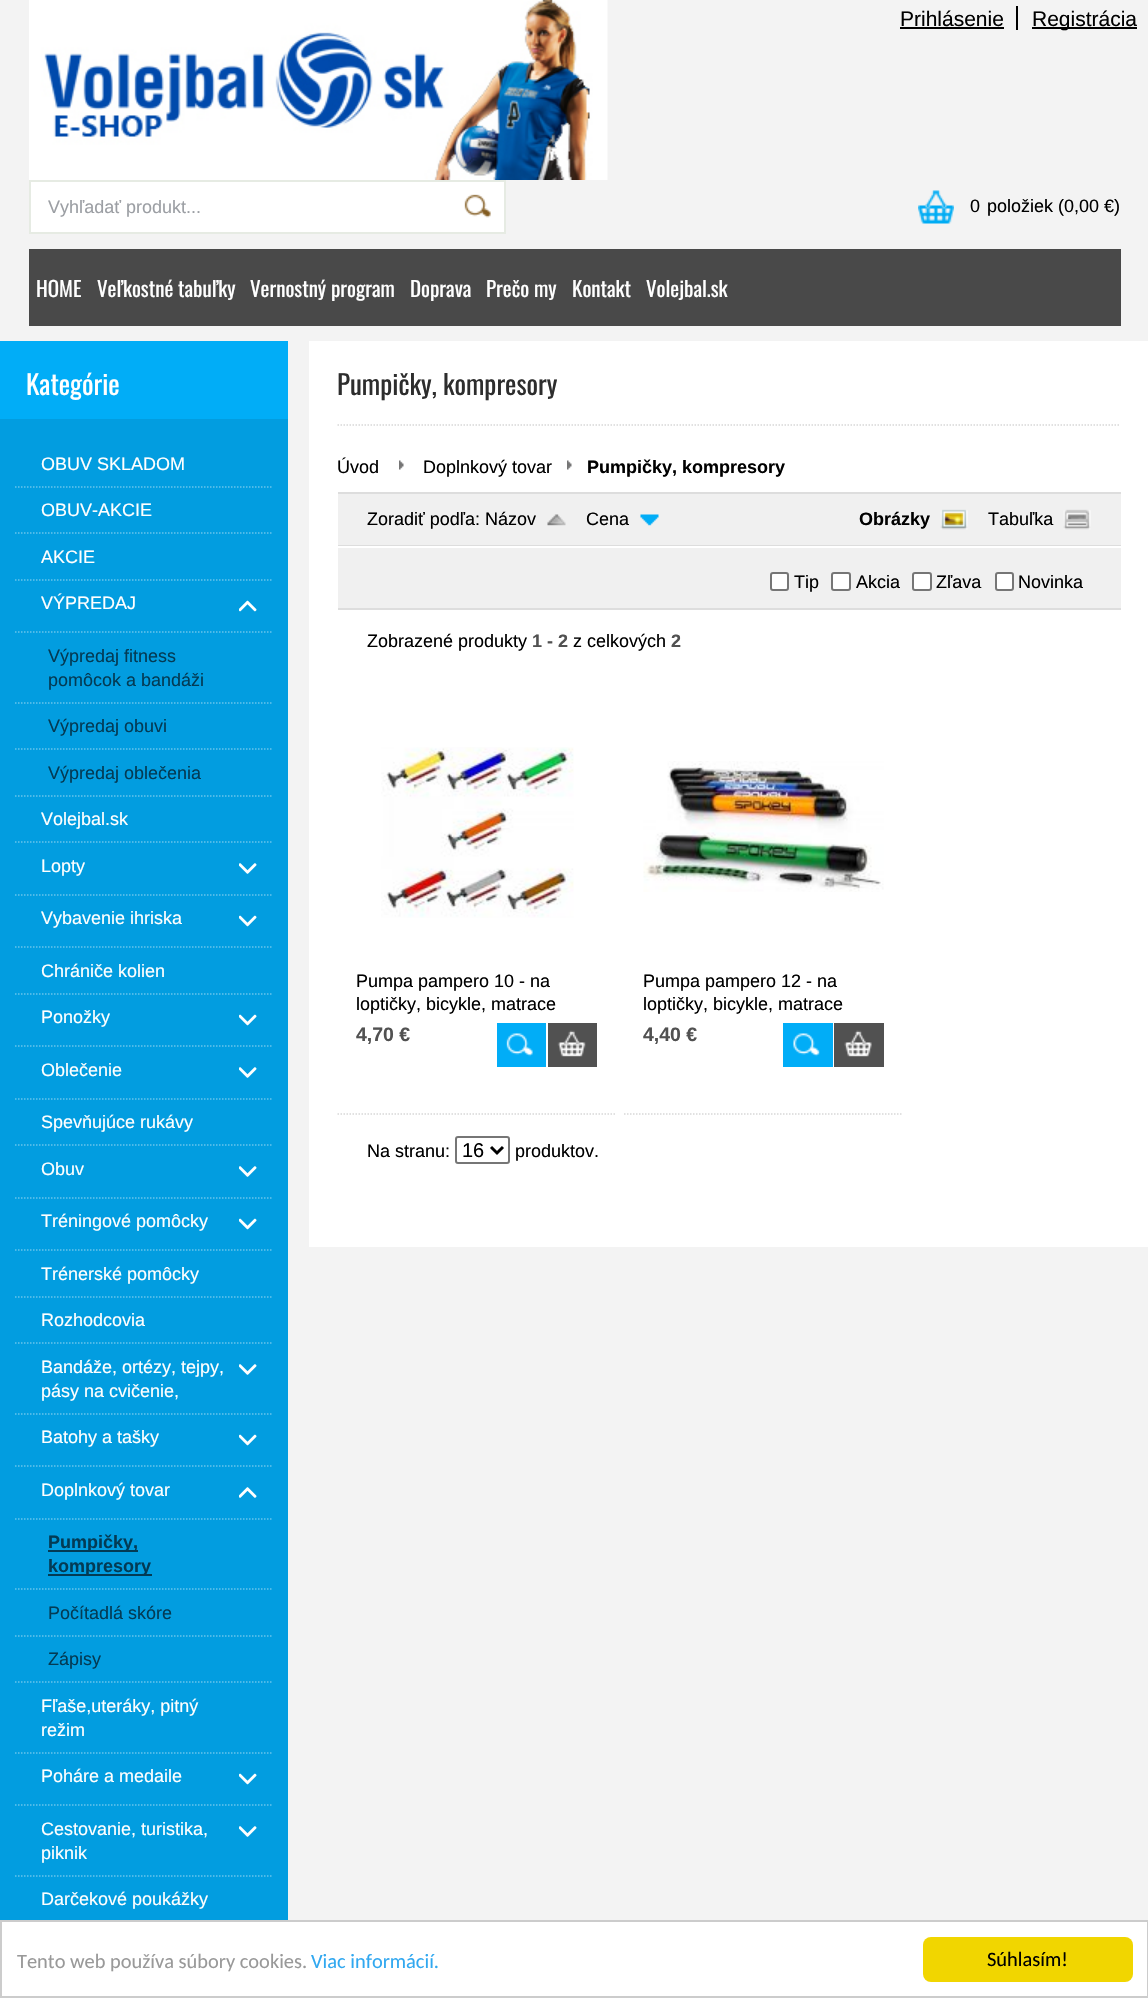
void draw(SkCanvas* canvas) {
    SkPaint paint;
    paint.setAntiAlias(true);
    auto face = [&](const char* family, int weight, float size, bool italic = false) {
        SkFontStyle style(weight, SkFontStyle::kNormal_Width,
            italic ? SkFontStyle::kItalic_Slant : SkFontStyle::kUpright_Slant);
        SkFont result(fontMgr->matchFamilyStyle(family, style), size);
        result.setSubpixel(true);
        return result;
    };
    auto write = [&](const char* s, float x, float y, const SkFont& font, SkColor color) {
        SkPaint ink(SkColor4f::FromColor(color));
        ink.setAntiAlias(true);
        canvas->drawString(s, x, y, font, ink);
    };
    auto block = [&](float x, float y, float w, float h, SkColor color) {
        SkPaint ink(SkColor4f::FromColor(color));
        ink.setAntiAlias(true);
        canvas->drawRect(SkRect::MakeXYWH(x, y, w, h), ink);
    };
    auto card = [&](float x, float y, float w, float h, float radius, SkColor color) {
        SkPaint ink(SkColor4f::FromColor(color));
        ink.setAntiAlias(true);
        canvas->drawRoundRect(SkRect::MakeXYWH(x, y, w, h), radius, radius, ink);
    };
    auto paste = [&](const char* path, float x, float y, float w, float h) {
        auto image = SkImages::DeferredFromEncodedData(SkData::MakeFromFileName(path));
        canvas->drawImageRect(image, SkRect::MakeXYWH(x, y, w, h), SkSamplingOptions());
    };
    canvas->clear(SkColorSetRGB(243, 243, 243));
    auto kFont1 = face("Liberation Sans", 400, 21);
    write("Prihlásenie", 900, 26, kFont1, SK_ColorBLACK);
    block(1016, 6, 2, 24, SK_ColorBLACK);
    block(900, 27, 104, 2, SK_ColorBLACK);
    block(1032, 27, 105, 2, SK_ColorBLACK);
    write("Registrácia", 1032, 26, kFont1, SK_ColorBLACK);
    paste("pic1.png", 29, 0, 579, 180);
    paint.setColor(SK_ColorWHITE);
    canvas->drawRect(SkRect::MakeXYWH(30, 181, 475, 52), paint);
    paint.setStyle(SkPaint::kStroke_Style);
    paint.setStrokeWidth(2);
    paint.setColor(SkColorSetRGB(230, 235, 227));
    canvas->drawRect(SkRect::MakeXYWH(30, 181, 475, 52), paint);
    auto kFont2 = face("Liberation Sans", 400, 18);
    write("Vyhľadať produkt...", 48, 213, kFont2, SkColorSetRGB(156, 159, 164));
    paste("pic2.png", 464, 194, 27, 24);
    paste("pic3.png", 918, 190, 36, 34);
    write("0", 970, 212, kFont2, SK_ColorBLACK);
    write("položiek (0,00 €)", 987, 212, kFont2, SK_ColorBLACK);
    block(29, 249, 1092, 77, SkColorSetRGB(73, 73, 73));
    auto kFont3 = face("Oswald", 400, 21);
    write("HOME", 36, 297, kFont3, SK_ColorWHITE);
    write("Veľkostné tabuľky", 97, 297, kFont3, SK_ColorWHITE);
    write("Vernostný program", 250, 297, kFont3, SK_ColorWHITE);
    write("Doprava", 410, 297, kFont3, SK_ColorWHITE);
    write("Prečo my", 486, 297, kFont3, SK_ColorWHITE);
    write("Kontakt", 572, 297, kFont3, SK_ColorWHITE);
    write("Volejbal.sk", 646, 297, kFont3, SK_ColorWHITE);
    block(0, 419, 288, 1501, SkColorSetRGB(2, 157, 224));
    block(0, 341, 288, 78, SkColorSetRGB(1, 173, 247));
    auto kFont4 = face("Oswald", 400, 27);
    write("Kategórie", 26, 395, kFont4, SK_ColorWHITE);
    paint.setStrokeWidth(1.5f);
    paint.setColor(SkColorSetRGB(103, 196, 236));
    paint.setPathEffect(SkDashPathEffect::Make({{1.5f, 1.5f}}, 0));
    canvas->drawPath(SkPathBuilder().moveTo(15, 487).lineTo(273, 487).detach(), paint);
    paint.setPathEffect(nullptr);
    write("OBUV SKLADOM", 41, 470, kFont2, SK_ColorWHITE);
    paint.setPathEffect(SkDashPathEffect::Make({{1.5f, 1.5f}}, 0));
    canvas->drawPath(SkPathBuilder().moveTo(15, 533).lineTo(273, 533).detach(), paint);
    paint.setPathEffect(nullptr);
    write("OBUV-AKCIE", 41, 516, kFont2, SK_ColorWHITE);
    paint.setPathEffect(SkDashPathEffect::Make({{1.5f, 1.5f}}, 0));
    canvas->drawPath(SkPathBuilder().moveTo(15, 580).lineTo(273, 580).detach(), paint);
    paint.setPathEffect(nullptr);
    write("AKCIE", 41, 563, kFont2, SK_ColorWHITE);
    paint.setPathEffect(SkDashPathEffect::Make({{1.5f, 1.5f}}, 0));
    canvas->drawPath(SkPathBuilder().moveTo(15, 632).lineTo(273, 632).detach(), paint);
    paint.setPathEffect(nullptr);
    write("VÝPREDAJ", 41, 609, kFont2, SK_ColorWHITE);
    paste("pic4.png", 239, 600, 18, 12);
    paint.setPathEffect(SkDashPathEffect::Make({{1.5f, 1.5f}}, 0));
    canvas->drawPath(SkPathBuilder().moveTo(15, 703).lineTo(273, 703).detach(), paint);
    paint.setPathEffect(nullptr);
    write("Výpredaj fitness", 48, 662, kFont2, SkColorSetRGB(3, 59, 85));
    write("pomôcok a bandáži", 48, 686, kFont2, SkColorSetRGB(3, 59, 85));
    paint.setPathEffect(SkDashPathEffect::Make({{1.5f, 1.5f}}, 0));
    canvas->drawPath(SkPathBuilder().moveTo(15, 749).lineTo(273, 749).detach(), paint);
    paint.setPathEffect(nullptr);
    write("Výpredaj obuvi", 48, 732, kFont2, SkColorSetRGB(3, 59, 85));
    paint.setPathEffect(SkDashPathEffect::Make({{1.5f, 1.5f}}, 0));
    canvas->drawPath(SkPathBuilder().moveTo(15, 796).lineTo(273, 796).detach(), paint);
    paint.setPathEffect(nullptr);
    write("Výpredaj oblečenia", 48, 779, kFont2, SkColorSetRGB(3, 59, 85));
    paint.setPathEffect(SkDashPathEffect::Make({{1.5f, 1.5f}}, 0));
    canvas->drawPath(SkPathBuilder().moveTo(15, 842).lineTo(273, 842).detach(), paint);
    paint.setPathEffect(nullptr);
    write("Volejbal.sk", 41, 825, kFont2, SK_ColorWHITE);
    paint.setPathEffect(SkDashPathEffect::Make({{1.5f, 1.5f}}, 0));
    canvas->drawPath(SkPathBuilder().moveTo(15, 895).lineTo(273, 895).detach(), paint);
    paint.setPathEffect(nullptr);
    write("Lopty", 41, 872, kFont2, SK_ColorWHITE);
    paste("pic5.png", 239, 863, 18, 11);
    paint.setPathEffect(SkDashPathEffect::Make({{1.5f, 1.5f}}, 0));
    canvas->drawPath(SkPathBuilder().moveTo(15, 947).lineTo(273, 947).detach(), paint);
    paint.setPathEffect(nullptr);
    write("Vybavenie ihriska", 41, 924, kFont2, SK_ColorWHITE);
    paste("pic6.png", 239, 915, 18, 12);
    paint.setPathEffect(SkDashPathEffect::Make({{1.5f, 1.5f}}, 0));
    canvas->drawPath(SkPathBuilder().moveTo(15, 994).lineTo(273, 994).detach(), paint);
    paint.setPathEffect(nullptr);
    write("Chrániče kolien", 41, 977, kFont2, SK_ColorWHITE);
    paint.setPathEffect(SkDashPathEffect::Make({{1.5f, 1.5f}}, 0));
    canvas->drawPath(SkPathBuilder().moveTo(15, 1046).lineTo(273, 1046).detach(), paint);
    paint.setPathEffect(nullptr);
    write("Ponožky", 41, 1023, kFont2, SK_ColorWHITE);
    paste("pic6.png", 239, 1014, 18, 12);
    paint.setPathEffect(SkDashPathEffect::Make({{1.5f, 1.5f}}, 0));
    canvas->drawPath(SkPathBuilder().moveTo(15, 1099).lineTo(273, 1099).detach(), paint);
    paint.setPathEffect(nullptr);
    write("Oblečenie", 41, 1076, kFont2, SK_ColorWHITE);
    paste("pic5.png", 239, 1067, 18, 11);
    paint.setPathEffect(SkDashPathEffect::Make({{1.5f, 1.5f}}, 0));
    canvas->drawPath(SkPathBuilder().moveTo(15, 1145).lineTo(273, 1145).detach(), paint);
    paint.setPathEffect(nullptr);
    write("Spevňujúce rukávy", 41, 1128, kFont2, SK_ColorWHITE);
    paint.setPathEffect(SkDashPathEffect::Make({{1.5f, 1.5f}}, 0));
    canvas->drawPath(SkPathBuilder().moveTo(15, 1198).lineTo(273, 1198).detach(), paint);
    paint.setPathEffect(nullptr);
    write("Obuv", 41, 1175, kFont2, SK_ColorWHITE);
    paste("pic5.png", 239, 1166, 18, 11);
    paint.setPathEffect(SkDashPathEffect::Make({{1.5f, 1.5f}}, 0));
    canvas->drawPath(SkPathBuilder().moveTo(15, 1250).lineTo(273, 1250).detach(), paint);
    paint.setPathEffect(nullptr);
    write("Tréningové pomôcky", 41, 1227, kFont2, SK_ColorWHITE);
    paste("pic6.png", 239, 1218, 18, 12);
    paint.setPathEffect(SkDashPathEffect::Make({{1.5f, 1.5f}}, 0));
    canvas->drawPath(SkPathBuilder().moveTo(15, 1297).lineTo(273, 1297).detach(), paint);
    paint.setPathEffect(nullptr);
    write("Trénerské pomôcky", 41, 1280, kFont2, SK_ColorWHITE);
    paint.setPathEffect(SkDashPathEffect::Make({{1.5f, 1.5f}}, 0));
    canvas->drawPath(SkPathBuilder().moveTo(15, 1343).lineTo(273, 1343).detach(), paint);
    paint.setPathEffect(nullptr);
    write("Rozhodcovia", 41, 1326, kFont2, SK_ColorWHITE);
    paint.setPathEffect(SkDashPathEffect::Make({{1.5f, 1.5f}}, 0));
    canvas->drawPath(SkPathBuilder().moveTo(15, 1414).lineTo(273, 1414).detach(), paint);
    paint.setPathEffect(nullptr);
    write("Bandáže, ortézy, tejpy,", 41, 1373, kFont2, SK_ColorWHITE);
    write("pásy na cvičenie,", 41, 1397, kFont2, SK_ColorWHITE);
    paste("pic5.png", 239, 1364, 18, 11);
    paint.setPathEffect(SkDashPathEffect::Make({{1.5f, 1.5f}}, 0));
    canvas->drawPath(SkPathBuilder().moveTo(15, 1466).lineTo(273, 1466).detach(), paint);
    paint.setPathEffect(nullptr);
    write("Batohy a tašky", 41, 1443, kFont2, SK_ColorWHITE);
    paste("pic6.png", 239, 1434, 18, 12);
    paint.setPathEffect(SkDashPathEffect::Make({{1.5f, 1.5f}}, 0));
    canvas->drawPath(SkPathBuilder().moveTo(15, 1519).lineTo(273, 1519).detach(), paint);
    paint.setPathEffect(nullptr);
    write("Doplnkový tovar", 41, 1496, kFont2, SK_ColorWHITE);
    paste("pic7.png", 239, 1487, 18, 11);
    paint.setPathEffect(SkDashPathEffect::Make({{1.5f, 1.5f}}, 0));
    canvas->drawPath(SkPathBuilder().moveTo(15, 1589).lineTo(273, 1589).detach(), paint);
    paint.setPathEffect(nullptr);
    block(48, 1550, 90, 2, SkColorSetRGB(3, 59, 85));
    auto kFont5 = face("Liberation Sans", 700, 18);
    write("Pumpičky,", 48, 1548, kFont5, SkColorSetRGB(3, 59, 85));
    block(48, 1574, 104, 2, SkColorSetRGB(3, 59, 85));
    write("kompresory", 48, 1572, kFont5, SkColorSetRGB(3, 59, 85));
    paint.setPathEffect(SkDashPathEffect::Make({{1.5f, 1.5f}}, 0));
    canvas->drawPath(SkPathBuilder().moveTo(15, 1636).lineTo(273, 1636).detach(), paint);
    paint.setPathEffect(nullptr);
    write("Počítadlá skóre", 48, 1619, kFont2, SkColorSetRGB(3, 59, 85));
    paint.setPathEffect(SkDashPathEffect::Make({{1.5f, 1.5f}}, 0));
    canvas->drawPath(SkPathBuilder().moveTo(15, 1682).lineTo(273, 1682).detach(), paint);
    paint.setPathEffect(nullptr);
    write("Zápisy", 48, 1665, kFont2, SkColorSetRGB(3, 59, 85));
    paint.setPathEffect(SkDashPathEffect::Make({{1.5f, 1.5f}}, 0));
    canvas->drawPath(SkPathBuilder().moveTo(15, 1753).lineTo(273, 1753).detach(), paint);
    paint.setPathEffect(nullptr);
    write("Fľaše,uteráky, pitný", 41, 1712, kFont2, SK_ColorWHITE);
    write("režim", 41, 1736, kFont2, SK_ColorWHITE);
    paint.setPathEffect(SkDashPathEffect::Make({{1.5f, 1.5f}}, 0));
    canvas->drawPath(SkPathBuilder().moveTo(15, 1805).lineTo(273, 1805).detach(), paint);
    paint.setPathEffect(nullptr);
    write("Poháre a medaile", 41, 1782, kFont2, SK_ColorWHITE);
    paste("pic6.png", 239, 1773, 18, 12);
    paint.setPathEffect(SkDashPathEffect::Make({{1.5f, 1.5f}}, 0));
    canvas->drawPath(SkPathBuilder().moveTo(15, 1876).lineTo(273, 1876).detach(), paint);
    paint.setPathEffect(nullptr);
    write("Cestovanie, turistika,", 41, 1835, kFont2, SK_ColorWHITE);
    write("piknik", 41, 1859, kFont2, SK_ColorWHITE);
    paste("pic5.png", 239, 1826, 18, 11);
    write("Darčekové poukážky", 41, 1905, kFont2, SK_ColorWHITE);
    block(309, 341, 839, 906, SK_ColorWHITE);
    paint.setColor(SkColorSetRGB(216, 216, 216));
    paint.setPathEffect(SkDashPathEffect::Make({{1.5f, 1.5f}}, 0));
    canvas->drawPath(SkPathBuilder().moveTo(337.5f, 425).lineTo(1120.5f, 425).detach(), paint);
    paint.setPathEffect(nullptr);
    write("Pumpičky, kompresory", 337, 395, kFont4, SkColorSetRGB(45, 45, 45));
    write("Úvod", 337, 473, kFont2, SK_ColorBLACK);
    paste("pic8.png", 399, 460, 5, 10);
    write("Doplnkový tovar", 423, 473, kFont2, SK_ColorBLACK);
    paste("pic8.png", 567, 460, 5, 10);
    write("Pumpičky, kompresory", 587, 473, kFont5, SK_ColorBLACK);
    block(338, 494, 783, 114, SkColorSetRGB(240, 240, 240));
    block(338, 492, 783, 2, SkColorSetRGB(221, 221, 221));
    block(338, 608, 783, 2, SkColorSetRGB(221, 221, 221));
    block(338, 545, 783, 1, SkColorSetRGB(221, 221, 221));
    write("Zoradiť podľa: Názov", 367, 525, kFont2, SK_ColorBLACK);
    paste("pic9.png", 547, 514, 19, 12);
    write("Cena", 586, 525, kFont2, SK_ColorBLACK);
    paste("pic10.png", 640, 514, 19, 12);
    write("Obrázky", 859, 525, kFont5, SK_ColorBLACK);
    paste("pic11.png", 940, 509, 28, 21);
    write("Tabuľka", 988, 525, kFont2, SK_ColorBLACK);
    paste("pic12.png", 1063, 509, 28, 21);
    block(338, 546, 783, 2, SK_ColorWHITE);
    paint.setStyle(SkPaint::kFill_Style);
    paint.setColor(SK_ColorWHITE);
    canvas->drawRoundRect(SkRect::MakeXYWH(771, 573, 17, 17), 2, 2, paint);
    paint.setStyle(SkPaint::kStroke_Style);
    paint.setStrokeWidth(2);
    paint.setColor(SkColorSetRGB(118, 118, 118));
    canvas->drawRoundRect(SkRect::MakeXYWH(771, 573, 17, 17), 2, 2, paint);
    write("Tip", 794, 588, kFont2, SK_ColorBLACK);
    paint.setStyle(SkPaint::kFill_Style);
    paint.setColor(SK_ColorWHITE);
    canvas->drawRoundRect(SkRect::MakeXYWH(832, 573, 18, 17), 2, 2, paint);
    paint.setStyle(SkPaint::kStroke_Style);
    paint.setColor(SkColorSetRGB(118, 118, 118));
    canvas->drawRoundRect(SkRect::MakeXYWH(832, 573, 18, 17), 2, 2, paint);
    write("Akcia", 856, 588, kFont2, SK_ColorBLACK);
    paint.setStyle(SkPaint::kFill_Style);
    paint.setColor(SK_ColorWHITE);
    canvas->drawRoundRect(SkRect::MakeXYWH(913, 573, 18, 17), 2, 2, paint);
    paint.setStyle(SkPaint::kStroke_Style);
    paint.setColor(SkColorSetRGB(118, 118, 118));
    canvas->drawRoundRect(SkRect::MakeXYWH(913, 573, 18, 17), 2, 2, paint);
    write("Zľava", 936, 588, kFont2, SK_ColorBLACK);
    paint.setStyle(SkPaint::kFill_Style);
    paint.setColor(SK_ColorWHITE);
    canvas->drawRoundRect(SkRect::MakeXYWH(996, 573, 17, 17), 2, 2, paint);
    paint.setStyle(SkPaint::kStroke_Style);
    paint.setColor(SkColorSetRGB(118, 118, 118));
    canvas->drawRoundRect(SkRect::MakeXYWH(996, 573, 17, 17), 2, 2, paint);
    write("Novinka", 1018, 588, kFont2, SK_ColorBLACK);
    write("Zobrazené produkty", 367, 647, kFont2, SK_ColorBLACK);
    write("1 - 2", 532, 647, kFont5, SkColorSetRGB(81, 81, 81));
    write("z celkových", 573, 647, kFont2, SK_ColorBLACK);
    write("2", 671, 647, kFont5, SkColorSetRGB(81, 81, 81));
    paint.setStrokeWidth(1.5f);
    paint.setColor(SkColorSetRGB(216, 216, 216));
    paint.setPathEffect(SkDashPathEffect::Make({{1.5f, 1.5f}}, 0));
    canvas->drawPath(SkPathBuilder().moveTo(337.5f, 1114).lineTo(616.5f, 1114).detach(), paint);
    paint.setPathEffect(nullptr);
    paste("pic13.png", 381, 747, 193, 171);
    write("Pumpa pampero 10 - na", 356, 987, kFont2, SK_ColorBLACK);
    write("loptičky, bicykle, matrace", 356, 1010, kFont2, SK_ColorBLACK);
    auto kFont6 = face("Liberation Sans", 700, 19.5f);
    write("4,70 €", 356, 1041, kFont6, SkColorSetRGB(81, 81, 81));
    block(497, 1023, 49, 44, SkColorSetRGB(1, 173, 247));
    paste("pic14.png", 506, 1033, 27, 24);
    block(548, 1023, 49, 44, SkColorSetRGB(81, 81, 81));
    paste("pic15.png", 557, 1030, 29, 27);
    paint.setPathEffect(SkDashPathEffect::Make({{1.5f, 1.5f}}, 0));
    canvas->drawPath(SkPathBuilder().moveTo(624, 1114).lineTo(903, 1114).detach(), paint);
    paint.setPathEffect(nullptr);
    paste("pic16.png", 643, 761, 241, 131);
    write("Pumpa pampero 12 - na", 643, 987, kFont2, SK_ColorBLACK);
    write("loptičky, bicykle, matrace", 643, 1010, kFont2, SK_ColorBLACK);
    write("4,40 €", 643, 1041, kFont6, SkColorSetRGB(81, 81, 81));
    block(783, 1023, 50, 44, SkColorSetRGB(1, 173, 247));
    paste("pic17.png", 793, 1033, 27, 24);
    block(834, 1023, 50, 44, SkColorSetRGB(81, 81, 81));
    paste("pic18.png", 844, 1030, 28, 27);
    write("Na stranu:", 367, 1157, kFont2, SK_ColorBLACK);
    paint.setStrokeWidth(2);
    paint.setColor(SkColorSetRGB(118, 118, 118));
    canvas->drawRoundRect(SkRect::MakeXYWH(456, 1137, 53, 26), 2, 2, paint);
    paint.setStrokeWidth(3);
    paint.setColor(SK_ColorBLACK);
    canvas->drawPath(SkPathBuilder().moveTo(491, 1147).lineTo(497, 1153).lineTo(503, 1147).detach(), paint);
    auto kFont7 = face("Liberation Sans", 400, 20);
    write("16", 462, 1157, kFont7, SK_ColorBLACK);
    write("produktov.", 515, 1157, kFont2, SK_ColorBLACK);
    paint.setStyle(SkPaint::kFill_Style);
    paint.setColor(SK_ColorWHITE);
    canvas->drawRect(SkRect::MakeXYWH(1, 1921, 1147, 76), paint);
    paint.setStyle(SkPaint::kStroke_Style);
    paint.setStrokeWidth(2);
    paint.setColor(SkColorSetRGB(204, 204, 204));
    canvas->drawRect(SkRect::MakeXYWH(1, 1921, 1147, 76), paint);
    auto kFont8 = face("Carlito", 400, 20.4f);
    write("Tento web používa súbory cookies.", 17, 1968, kFont8, SkColorSetRGB(153, 153, 153));
    write("Viac informácií.", 311, 1968, kFont8, SkColorSetRGB(49, 168, 240));
    card(923, 1937, 210, 45, 8, SkColorSetRGB(241, 214, 0));
    write("Súhlasím!", 987, 1966, kFont8, SK_ColorBLACK);
}
